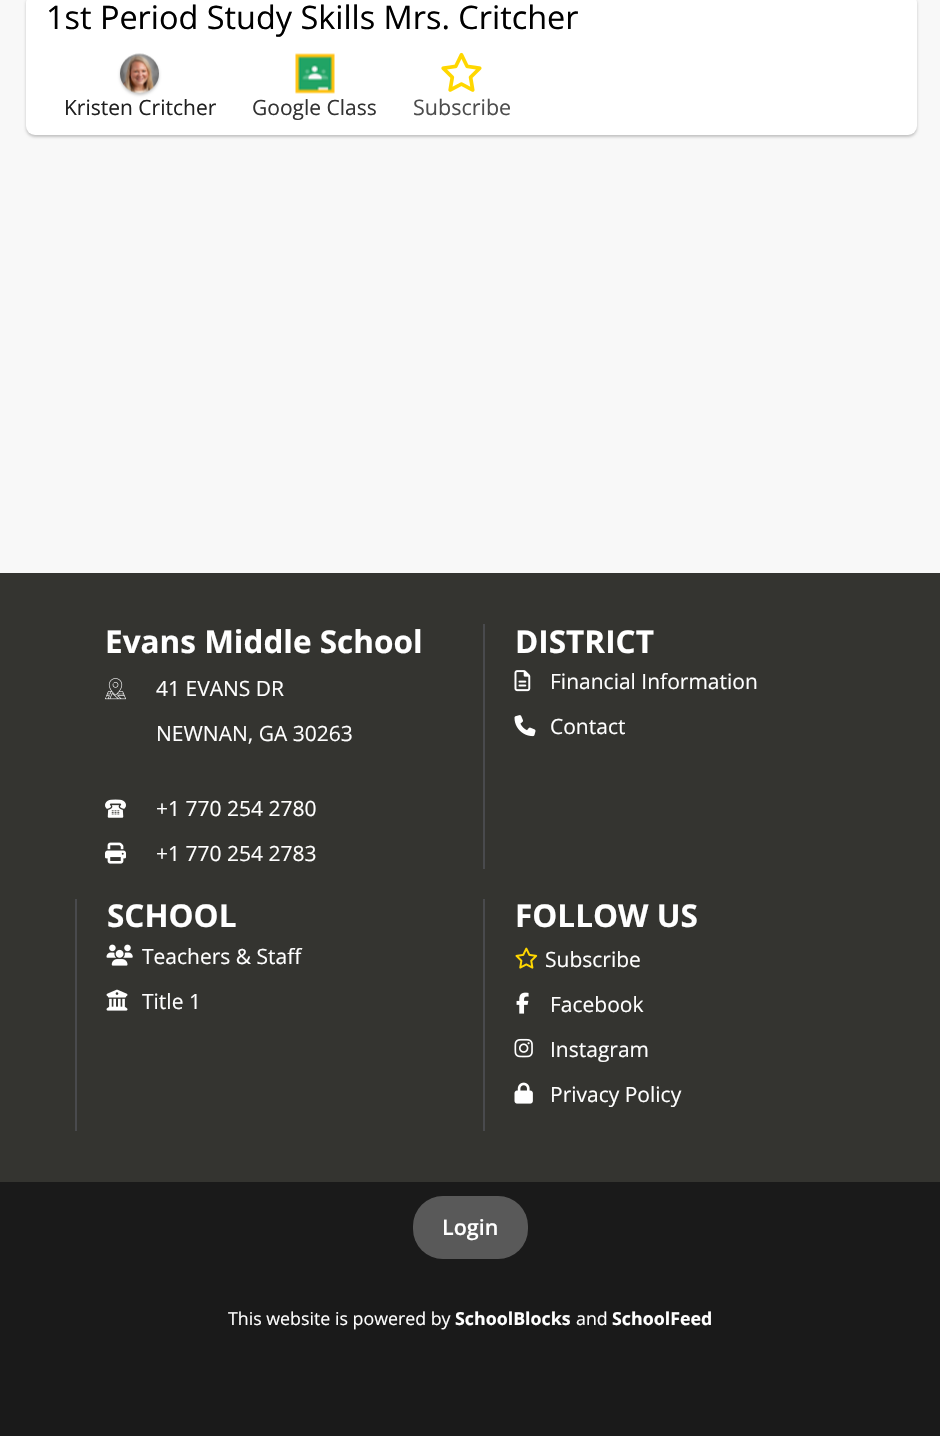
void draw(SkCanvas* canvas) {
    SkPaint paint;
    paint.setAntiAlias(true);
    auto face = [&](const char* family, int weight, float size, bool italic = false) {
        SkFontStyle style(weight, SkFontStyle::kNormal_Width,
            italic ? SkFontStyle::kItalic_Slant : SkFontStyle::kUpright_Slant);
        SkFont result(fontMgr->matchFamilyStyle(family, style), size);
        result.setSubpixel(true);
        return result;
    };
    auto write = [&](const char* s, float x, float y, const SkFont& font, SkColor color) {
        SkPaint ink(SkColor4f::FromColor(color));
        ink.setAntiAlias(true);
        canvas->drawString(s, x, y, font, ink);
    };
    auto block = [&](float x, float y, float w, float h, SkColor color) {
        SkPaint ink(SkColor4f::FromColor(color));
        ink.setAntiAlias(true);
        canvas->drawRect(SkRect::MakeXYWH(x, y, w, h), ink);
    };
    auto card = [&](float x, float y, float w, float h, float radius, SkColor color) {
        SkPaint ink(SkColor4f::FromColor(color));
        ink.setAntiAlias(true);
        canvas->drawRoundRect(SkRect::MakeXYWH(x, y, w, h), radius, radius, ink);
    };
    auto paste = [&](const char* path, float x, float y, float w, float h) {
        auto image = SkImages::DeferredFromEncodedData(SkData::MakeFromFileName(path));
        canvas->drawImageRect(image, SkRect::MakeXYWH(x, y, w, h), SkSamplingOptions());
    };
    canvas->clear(SkColorSetRGB(248, 248, 248));
    paint.setColor(SkColorSetARGB(56, 0, 0, 0));
    paint.setMaskFilter(SkMaskFilter::MakeBlur(kNormal_SkBlurStyle, 1.5f));
    canvas->drawRoundRect(SkRect::MakeXYWH(26, -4, 891, 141), 9, 9, paint);
    paint.setMaskFilter(nullptr);
    card(26, -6, 891, 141, 9, SK_ColorWHITE);
    auto kFont1 = face("Open Sans", 400, 32.4f);
    write("1st Period Study Skills Mrs. Critcher", 46, 29, kFont1, SK_ColorBLACK);
    paint.setMaskFilter(SkMaskFilter::MakeBlur(kNormal_SkBlurStyle, 1.5f));
    canvas->drawRoundRect(SkRect::MakeXYWH(120, 56, 39, 39), 19.5f, 19.5f, paint);
    paint.setMaskFilter(nullptr);
    paste("pic1.png", 120, 53, 39, 41);
    auto kFont2 = face("Open Sans", 400, 21);
    write("Kristen Critcher", 64, 115, kFont2, SkColorSetRGB(32, 32, 32));
    paste("pic2.png", 295, 53, 40, 41);
    write("Google Class", 252, 115, kFont2, SkColorSetRGB(51, 51, 51));
    paste("pic3.png", 441, 52, 41, 40);
    auto kFont3 = face("Open Sans", 400, 21.5f);
    write("Subscribe", 413, 115, kFont3, SkColorSetRGB(77, 77, 77));
    block(0, 573, 940, 609, SkColorSetRGB(52, 52, 48));
    auto kFont4 = face("Open Sans", 700, 31.5f);
    write("Evans Middle School", 105, 653, kFont4, SK_ColorWHITE);
    paste("pic4.png", 105, 678, 21, 22);
    write("41 EVANS DR", 156, 696, kFont2, SK_ColorWHITE);
    write("NEWNAN, GA 30263", 156, 741, kFont2, SK_ColorWHITE);
    paste("pic5.png", 105, 799, 21, 19);
    write("+1 770 254 2780", 156, 816, kFont2, SK_ColorWHITE);
    paste("pic6.png", 105, 842, 21, 22);
    write("+1 770 254 2783", 156, 861, kFont2, SK_ColorWHITE);
    block(483, 624, 2, 245, SkColorSetRGB(73, 74, 77));
    write("DISTRICT", 515, 653, kFont4, SK_ColorWHITE);
    paste("pic7.png", 514, 670, 17, 22);
    write("Financial Information", 550, 689, kFont2, SK_ColorWHITE);
    paste("pic8.png", 514, 715, 22, 22);
    write("Contact", 550, 734, kFont2, SK_ColorWHITE);
    block(75, 899, 2, 232, SkColorSetRGB(73, 74, 77));
    write("SCHOOL", 107, 927, kFont4, SK_ColorWHITE);
    paste("pic9.png", 106, 944, 27, 22);
    write("Teachers & Staff", 142, 964, kFont2, SK_ColorWHITE);
    paste("pic10.png", 106, 989, 22, 22);
    write("Title 1", 142, 1009, kFont2, SK_ColorWHITE);
    block(483, 899, 2, 232, SkColorSetRGB(73, 74, 77));
    write("FOLLOW US", 515, 927, kFont4, SK_ColorWHITE);
    paste("pic11.png", 515, 947, 23, 22);
    write("Subscribe", 545, 967, kFont2, SK_ColorWHITE);
    paste("pic12.png", 516, 992, 13, 22);
    write("Facebook", 550, 1012, kFont2, SK_ColorWHITE);
    paste("pic13.png", 514, 1038, 19, 20);
    write("Instagram", 550, 1057, kFont2, SK_ColorWHITE);
    paste("pic14.png", 514, 1082, 19, 22);
    write("Privacy Policy", 550, 1102, kFont2, SK_ColorWHITE);
    block(0, 1182, 940, 254, SkColorSetRGB(26, 26, 26));
    card(413, 1196, 115, 63, 30, SkColorSetRGB(89, 89, 89));
    auto kFont5 = face("Open Sans", 600, 21.5f);
    write("Login", 442, 1235, kFont5, SK_ColorWHITE);
    auto kFont6 = face("Open Sans", 400, 17.8f);
    write("This website is powered by", 228, 1325, kFont6, SK_ColorWHITE);
    auto kFont7 = face("Open Sans", 700, 17.8f);
    write("SchoolBlocks", 455, 1325, kFont7, SK_ColorWHITE);
    write("and", 576, 1325, kFont6, SK_ColorWHITE);
    write("SchoolFeed", 612, 1325, kFont7, SK_ColorWHITE);
}
